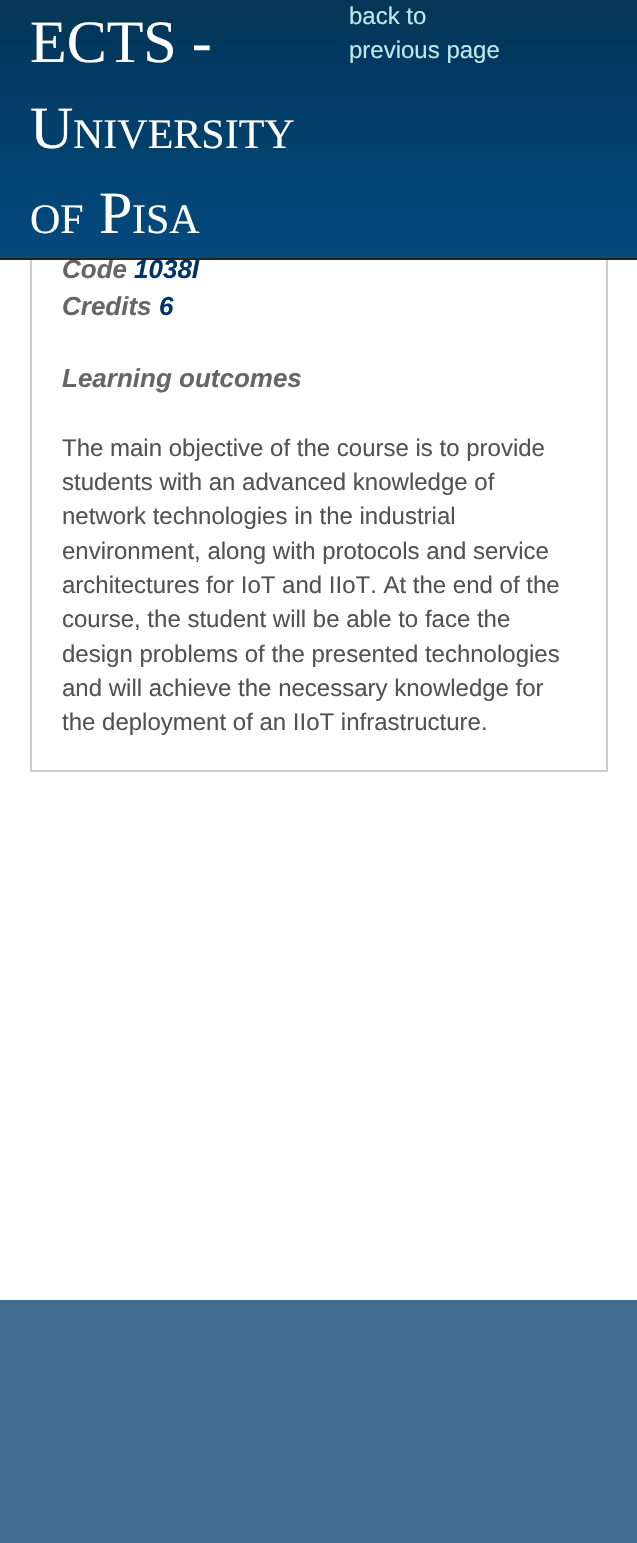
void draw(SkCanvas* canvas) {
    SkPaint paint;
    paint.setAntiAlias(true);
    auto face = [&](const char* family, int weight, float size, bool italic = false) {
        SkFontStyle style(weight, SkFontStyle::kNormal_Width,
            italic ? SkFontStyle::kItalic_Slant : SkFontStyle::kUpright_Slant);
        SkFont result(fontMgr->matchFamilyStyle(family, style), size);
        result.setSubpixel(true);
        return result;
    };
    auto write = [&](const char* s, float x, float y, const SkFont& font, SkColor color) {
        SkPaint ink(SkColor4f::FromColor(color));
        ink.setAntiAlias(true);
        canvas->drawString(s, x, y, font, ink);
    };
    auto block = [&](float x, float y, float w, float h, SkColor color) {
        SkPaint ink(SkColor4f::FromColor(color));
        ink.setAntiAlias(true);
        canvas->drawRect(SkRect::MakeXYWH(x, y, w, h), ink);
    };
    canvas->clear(SkColorSetRGB(67, 110, 144));
    block(0, 260, 637, 1040, SK_ColorWHITE);
    paint.setStyle(SkPaint::kStroke_Style);
    paint.setStrokeWidth(2);
    paint.setColor(SkColorSetRGB(204, 204, 204));
    canvas->drawRect(SkRect::MakeXYWH(31, 101, 576, 670), paint);
    auto kFont1 = face("Liberation Sans", 700, 26, true);
    write("Code", 62, 278, kFont1, SkColorSetRGB(102, 102, 102));
    write("1038I", 134, 278, kFont1, SkColorSetRGB(0, 51, 102));
    block(0, 258, 637, 2, SkColorSetRGB(36, 36, 36));
    paint.setStyle(SkPaint::kFill_Style);
    {
        const SkColor colors[] = {SkColorSetRGB(5, 54, 87), SkColorSetRGB(5, 55, 90), SkColorSetRGB(2, 54, 91), SkColorSetRGB(5, 62, 105), SkColorSetRGB(2, 63, 107), SkColorSetRGB(4, 67, 111), SkColorSetRGB(2, 68, 116), SkColorSetRGB(3, 71, 120), SkColorSetRGB(4, 71, 123), SkColorSetRGB(3, 73, 124), SkColorSetRGB(0, 77, 121)};
        const float stops[] = {0, 0.12f, 0.13f, 0.41f, 0.52f, 0.62f, 0.69f, 0.87f, 0.88f, 0.99f, 1};
        const SkPoint ends[] = {{319, 0}, {319, 258}};
        paint.setShader(SkGradientShader::MakeLinear(ends, colors, stops, 11, SkTileMode::kClamp));
        paint.setAlpha(255);
    }
    canvas->drawRect(SkRect::MakeXYWH(0, 0, 637, 258), paint);
    auto kFont2 = face("Liberation Serif", 400, 60);
    write("ECTS -", 30, 62, kFont2, SK_ColorWHITE);
    write("U", 30, 148, kFont2, SK_ColorWHITE);
    auto kFont3 = face("Liberation Serif", 400, 42);
    write("NIVERSITY", 73, 148, kFont3, SK_ColorWHITE);
    write("OF", 30, 233, kFont3, SK_ColorWHITE);
    write("P", 99, 233, kFont2, SK_ColorWHITE);
    write("ISA", 132, 233, kFont3, SK_ColorWHITE);
    auto kFont4 = face("Liberation Sans", 400, 24);
    write("back to", 349, 24, kFont4, SkColorSetRGB(190, 232, 237));
    write("previous page", 349, 58, kFont4, SkColorSetRGB(190, 232, 237));
    write("Credits", 62, 315, kFont1, SkColorSetRGB(102, 102, 102));
    write("6", 159, 315, kFont1, SkColorSetRGB(0, 51, 102));
    write("Learning outcomes", 62, 387, kFont1, SkColorSetRGB(102, 102, 102));
    write("The main objective of the course is to provide", 62, 456, kFont4, SkColorSetRGB(82, 82, 82));
    write("students with an advanced knowledge of", 62, 490, kFont4, SkColorSetRGB(82, 82, 82));
    write("network technologies in the industrial", 62, 524, kFont4, SkColorSetRGB(82, 82, 82));
    write("environment, along with protocols and service", 62, 559, kFont4, SkColorSetRGB(82, 82, 82));
    write("architectures for IoT and IIoT. At the end of the", 62, 593, kFont4, SkColorSetRGB(82, 82, 82));
    write("course, the student will be able to face the", 62, 627, kFont4, SkColorSetRGB(82, 82, 82));
    write("design problems of the presented technologies", 62, 662, kFont4, SkColorSetRGB(82, 82, 82));
    write("and will achieve the necessary knowledge for", 62, 696, kFont4, SkColorSetRGB(82, 82, 82));
    write("the deployment of an IIoT infrastructure.", 62, 730, kFont4, SkColorSetRGB(82, 82, 82));
}
